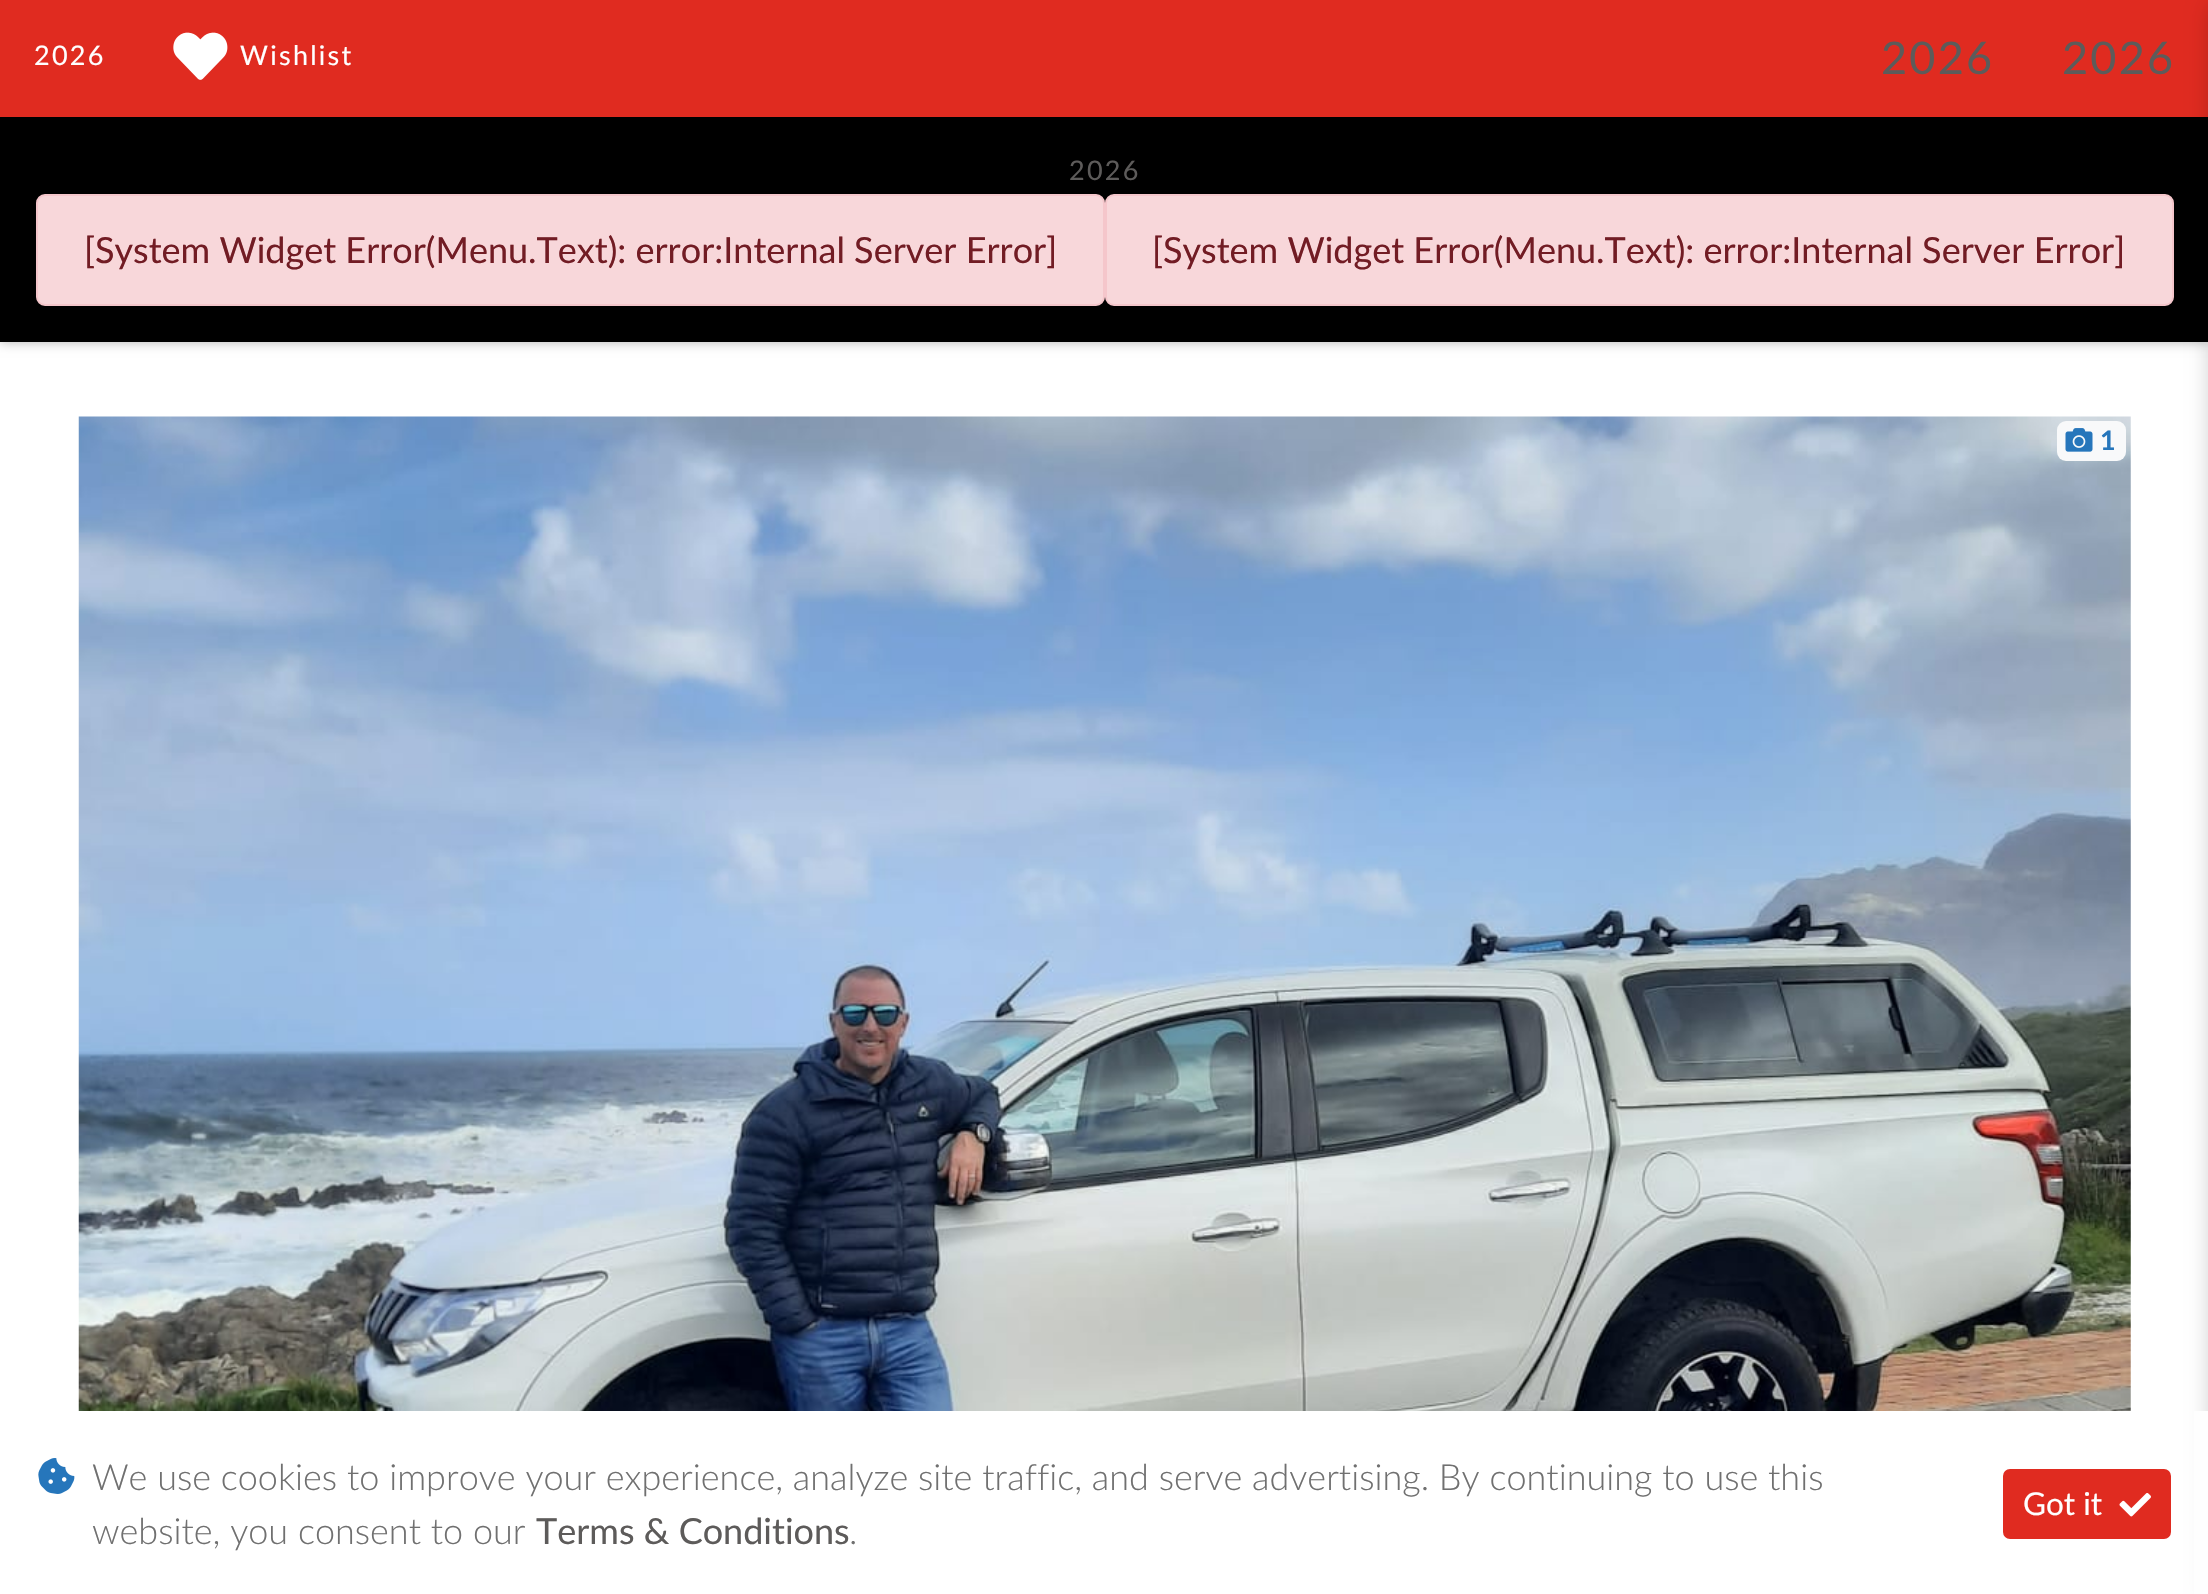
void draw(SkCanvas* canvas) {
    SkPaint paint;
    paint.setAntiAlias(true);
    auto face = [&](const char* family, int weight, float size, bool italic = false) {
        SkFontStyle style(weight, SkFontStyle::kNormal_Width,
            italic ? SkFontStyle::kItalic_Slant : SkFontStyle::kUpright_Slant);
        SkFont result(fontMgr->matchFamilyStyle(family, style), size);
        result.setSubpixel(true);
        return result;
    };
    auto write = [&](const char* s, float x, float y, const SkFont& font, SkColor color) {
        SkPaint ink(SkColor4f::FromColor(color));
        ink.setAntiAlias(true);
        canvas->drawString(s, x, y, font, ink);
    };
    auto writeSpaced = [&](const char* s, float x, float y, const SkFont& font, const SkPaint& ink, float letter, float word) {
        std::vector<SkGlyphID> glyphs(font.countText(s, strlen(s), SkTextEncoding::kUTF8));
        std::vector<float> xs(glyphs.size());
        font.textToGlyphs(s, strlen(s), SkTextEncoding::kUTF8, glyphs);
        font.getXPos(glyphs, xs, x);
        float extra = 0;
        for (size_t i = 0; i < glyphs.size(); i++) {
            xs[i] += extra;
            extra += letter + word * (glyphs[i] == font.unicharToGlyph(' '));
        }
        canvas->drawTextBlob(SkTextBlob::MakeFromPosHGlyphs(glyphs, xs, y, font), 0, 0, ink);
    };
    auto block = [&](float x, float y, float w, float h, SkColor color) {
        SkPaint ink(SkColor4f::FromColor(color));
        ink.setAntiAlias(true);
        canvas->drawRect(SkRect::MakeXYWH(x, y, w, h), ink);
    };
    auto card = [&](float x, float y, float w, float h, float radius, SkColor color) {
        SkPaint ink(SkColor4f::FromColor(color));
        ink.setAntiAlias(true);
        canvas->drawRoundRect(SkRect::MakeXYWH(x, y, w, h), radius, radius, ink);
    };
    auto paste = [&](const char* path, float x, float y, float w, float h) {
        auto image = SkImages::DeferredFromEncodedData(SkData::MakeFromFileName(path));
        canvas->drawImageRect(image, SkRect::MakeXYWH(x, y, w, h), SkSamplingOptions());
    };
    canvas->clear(SK_ColorWHITE);
    paint.setColor(SkColorSetARGB(77, 0, 0, 0));
    paint.setMaskFilter(SkMaskFilter::MakeBlur(kNormal_SkBlurStyle, 5.5f));
    canvas->drawRect(SkRect::MakeXYWH(0, 0, 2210, 342), paint);
    paint.setMaskFilter(nullptr);
    block(0, 0, 2208, 117, SkColorSetRGB(224, 43, 32));
    auto kFont1 = face("Lato", 400, 27);
    paint.setColor(SK_ColorWHITE);
    writeSpaced("2026", 34, 65, kFont1, paint, 2.25f, 0);
    paste("pic1.png", 173, 32, 55, 48);
    writeSpaced("Wishlist", 240, 65, kFont1, paint, 2.25f, 0);
    auto kFont2 = face("Lato", 400, 45);
    paint.setColor(SkColorSetRGB(93, 91, 90));
    writeSpaced("2026", 1881, 74, kFont2, paint, 2.25f, 0);
    writeSpaced("2026", 2062, 74, kFont2, paint, 2.25f, 0);
    block(0, 117, 2208, 225, SK_ColorBLACK);
    writeSpaced("2026", 1069, 180, kFont1, paint, 2.25f, 0);
    paint.setColor(SkColorSetRGB(248, 215, 218));
    canvas->drawRoundRect(SkRect::MakeXYWH(37, 195, 1067, 110), 8, 8, paint);
    paint.setStyle(SkPaint::kStroke_Style);
    paint.setStrokeWidth(2);
    paint.setColor(SkColorSetRGB(245, 198, 203));
    canvas->drawRoundRect(SkRect::MakeXYWH(37, 195, 1067, 110), 8, 8, paint);
    auto kFont3 = face("Lato", 400, 36);
    write("[System Widget Error(Menu.Text): error:Internal Server Error]", 84, 263, kFont3, SkColorSetRGB(114, 28, 36));
    paint.setStyle(SkPaint::kFill_Style);
    paint.setColor(SkColorSetRGB(248, 215, 218));
    canvas->drawRoundRect(SkRect::MakeXYWH(1106, 195, 1067, 110), 8, 8, paint);
    paint.setStyle(SkPaint::kStroke_Style);
    paint.setColor(SkColorSetRGB(245, 198, 203));
    canvas->drawRoundRect(SkRect::MakeXYWH(1106, 195, 1067, 110), 8, 8, paint);
    write("[System Widget Error(Menu.Text): error:Internal Server Error]", 1152, 263, kFont3, SkColorSetRGB(114, 28, 36));
    paint.setStyle(SkPaint::kFill_Style);
    paint.setColor(SkColorSetARGB(51, 0, 0, 0));
    paint.setMaskFilter(SkMaskFilter::MakeBlur(kNormal_SkBlurStyle, 11));
    canvas->drawRect(SkRect::MakeXYWH(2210, 5, 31, 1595), paint);
    paint.setMaskFilter(nullptr);
    paste("pic2.png", 78, 416, 2053, 995);
    card(2057, 421, 69, 40, 9, SkColorSetRGB(248, 249, 250));
    paste("pic3.png", 2065, 428, 28, 24);
    auto kFont4 = face("Lato", 700, 27);
    write("1", 2100, 450, kFont4, SkColorSetRGB(38, 118, 187));
    block(2194, 1411, 14, 183, SkColorSetRGB(254, 254, 254));
    paste("pic4.png", 38, 1458, 37, 36);
    auto kFont5 = face("Lato", 300, 36);
    write("We use cookies to improve your experience, analyze site traffic, and serve advertising. By continuing to use this", 92, 1490, kFont5, SkColorSetRGB(112, 112, 112));
    write("website, you consent to our", 92, 1544, kFont5, SkColorSetRGB(112, 112, 112));
    write("Terms & Conditions", 536, 1544, kFont3, SkColorSetRGB(93, 91, 90));
    write(".", 849, 1544, kFont5, SkColorSetRGB(112, 112, 112));
    paint.setColor(SkColorSetRGB(224, 43, 32));
    canvas->drawRoundRect(SkRect::MakeXYWH(2004, 1470, 166, 68), 6, 6, paint);
    paint.setStyle(SkPaint::kStroke_Style);
    canvas->drawRoundRect(SkRect::MakeXYWH(2004, 1470, 166, 68), 6, 6, paint);
    auto kFont6 = face("Lato", 400, 31.5f);
    write("Got it", 2023, 1515, kFont6, SK_ColorWHITE);
    paste("pic5.png", 2119, 1493, 32, 24);
}
